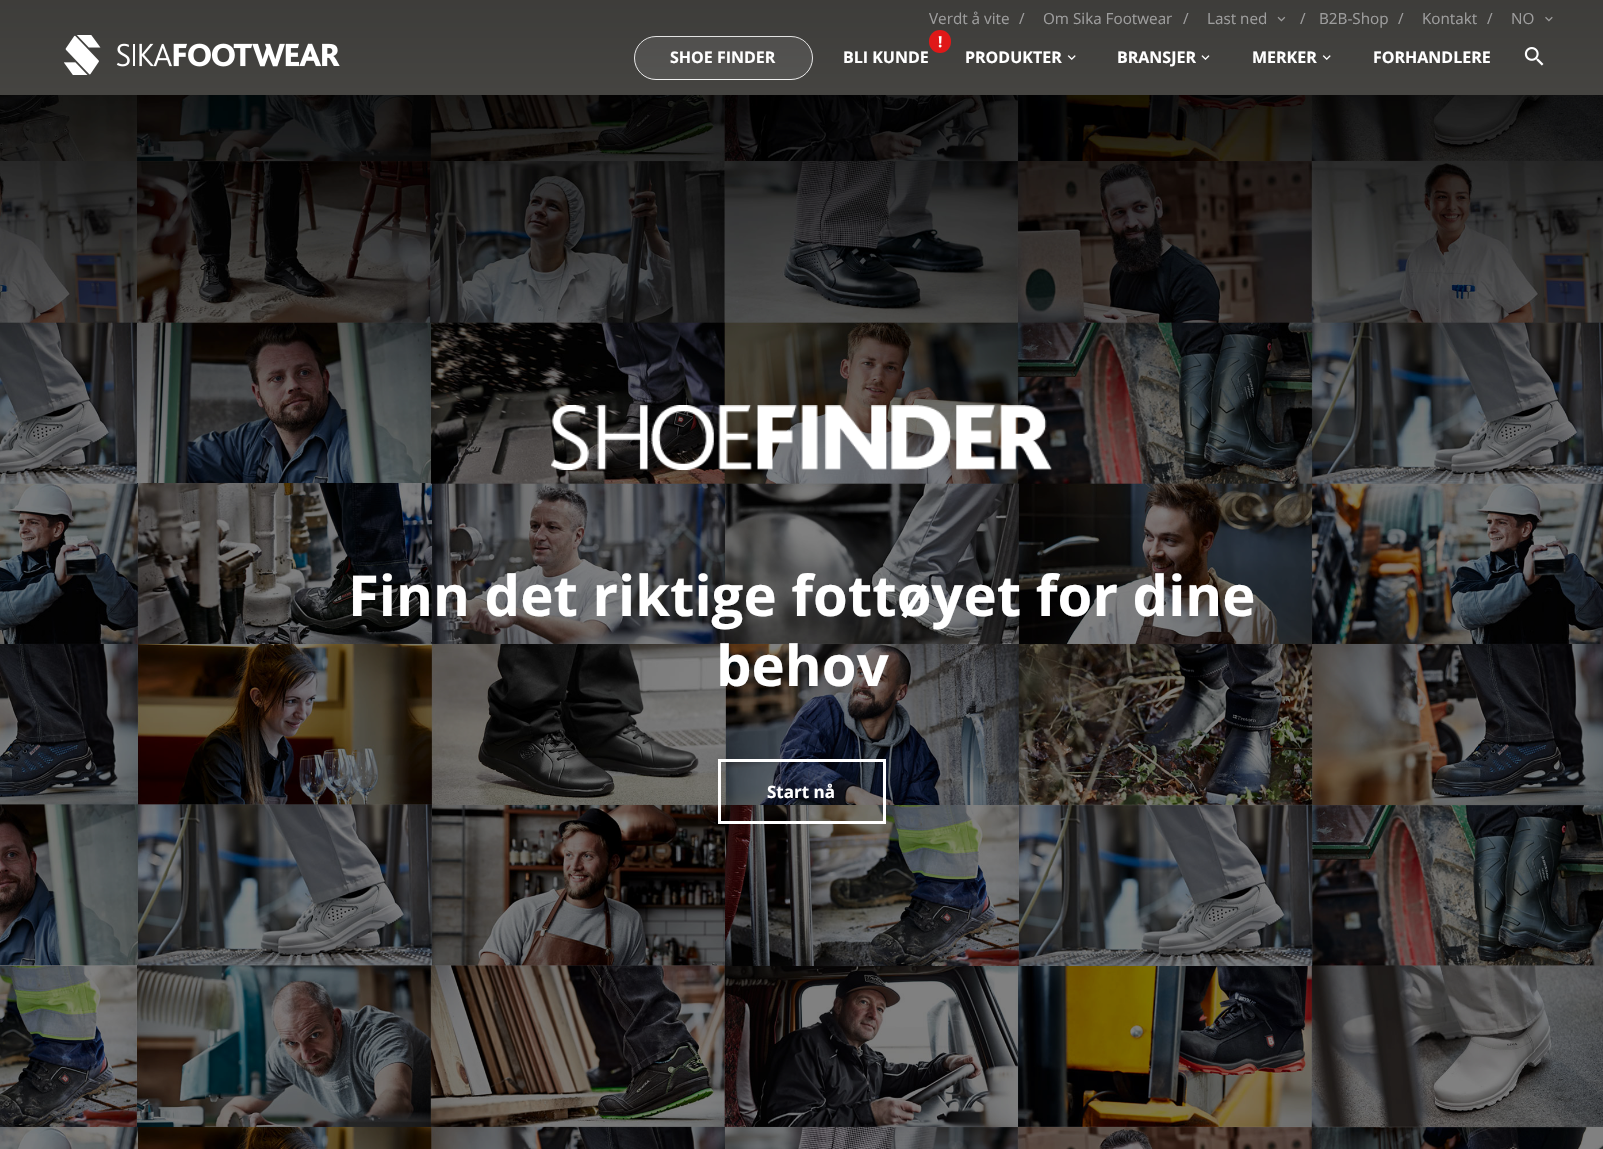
void draw(SkCanvas* canvas) {
    SkPaint paint;
    paint.setAntiAlias(true);
    auto face = [&](const char* family, int weight, float size, bool italic = false) {
        SkFontStyle style(weight, SkFontStyle::kNormal_Width,
            italic ? SkFontStyle::kItalic_Slant : SkFontStyle::kUpright_Slant);
        SkFont result(fontMgr->matchFamilyStyle(family, style), size);
        result.setSubpixel(true);
        return result;
    };
    auto write = [&](const char* s, float x, float y, const SkFont& font, SkColor color) {
        SkPaint ink(SkColor4f::FromColor(color));
        ink.setAntiAlias(true);
        canvas->drawString(s, x, y, font, ink);
    };
    auto block = [&](float x, float y, float w, float h, SkColor color) {
        SkPaint ink(SkColor4f::FromColor(color));
        ink.setAntiAlias(true);
        canvas->drawRect(SkRect::MakeXYWH(x, y, w, h), ink);
    };
    auto card = [&](float x, float y, float w, float h, float radius, SkColor color) {
        SkPaint ink(SkColor4f::FromColor(color));
        ink.setAntiAlias(true);
        canvas->drawRoundRect(SkRect::MakeXYWH(x, y, w, h), radius, radius, ink);
    };
    auto paste = [&](const char* path, float x, float y, float w, float h) {
        auto image = SkImages::DeferredFromEncodedData(SkData::MakeFromFileName(path));
        canvas->drawImageRect(image, SkRect::MakeXYWH(x, y, w, h), SkSamplingOptions());
    };
    canvas->clear(SK_ColorWHITE);
    block(0, 0, 1603, 95, SkColorSetRGB(72, 71, 68));
    paint.setColor(SkColorSetRGB(90, 89, 87));
    canvas->drawRoundRect(SkRect::MakeXYWH(634.5f, 36.5f, 178, 43), 21.5f, 21.5f, paint);
    paint.setStyle(SkPaint::kStroke_Style);
    paint.setStrokeWidth(1);
    paint.setColor(SK_ColorWHITE);
    canvas->drawRoundRect(SkRect::MakeXYWH(634.5f, 36.5f, 178, 43), 21.5f, 21.5f, paint);
    paint.setStyle(SkPaint::kFill_Style);
    {
        const SkColor colors[] = {SkColorSetARGB(38, 0, 0, 0), SkColorSetARGB(0, 0, 0, 0)};
        const float stops[] = {0, 0.95f};
        const SkPoint ends[] = {{802, 0}, {802, 144}};
        paint.setShader(SkGradientShader::MakeLinear(ends, colors, stops, 2, SkTileMode::kClamp));
        paint.setAlpha(255);
    }
    canvas->drawRect(SkRect::MakeXYWH(0, 0, 1603, 95), paint);
    auto kFont1 = face("Open Sans", 400, 15.25f);
    write("Verdt å vite", 929, 24, kFont1, SkColorSetRGB(158, 158, 158));
    write("/", 1019, 24, kFont1, SkColorSetRGB(158, 158, 158));
    write("Om Sika Footwear", 1043, 24, kFont1, SkColorSetRGB(158, 158, 158));
    write("/", 1183, 24, kFont1, SkColorSetRGB(158, 158, 158));
    write("Last ned", 1207, 24, kFont1, SkColorSetRGB(158, 158, 158));
    paste("pic1.png", 1277, 16, 9, 6);
    write("/", 1300, 24, kFont1, SkColorSetRGB(158, 158, 158));
    write("B2B-Shop", 1319, 24, kFont1, SkColorSetRGB(158, 158, 158));
    write("/", 1398, 24, kFont1, SkColorSetRGB(158, 158, 158));
    write("Kontakt", 1422, 24, kFont1, SkColorSetRGB(158, 158, 158));
    write("/", 1487, 24, kFont1, SkColorSetRGB(158, 158, 158));
    write("NO", 1511, 24, kFont1, SkColorSetRGB(158, 158, 158));
    paste("pic2.png", 1545, 16, 8, 6);
    paste("pic3.png", 64, 35, 276, 40);
    auto kFont2 = face("Open Sans", 700, 16);
    write("SHOE FINDER", 670, 63, kFont2, SK_ColorWHITE);
    card(929, 30, 22, 23, 11, SkColorSetRGB(224, 24, 24));
    auto kFont3 = face("Open Sans", 700, 15);
    write("!", 938, 47, kFont3, SK_ColorWHITE);
    write("BLI KUNDE", 843, 63, kFont2, SK_ColorWHITE);
    write("PRODUKTER", 965, 63, kFont2, SK_ColorWHITE);
    paste("pic4.png", 1067, 55, 9, 5);
    write("BRANSJER", 1117, 63, kFont2, SK_ColorWHITE);
    paste("pic5.png", 1201, 55, 9, 5);
    write("MERKER", 1252, 63, kFont2, SK_ColorWHITE);
    paste("pic4.png", 1322, 55, 9, 5);
    write("FORHANDLERE", 1373, 63, kFont2, SK_ColorWHITE);
    paste("pic6.png", 1524, 47, 20, 19);
    paste("pic7.png", 0, 95, 1603, 1054);
    paste("pic8.png", 551, 405, 501, 65);
    auto kFont4 = face("Open Sans", 700, 56.25f);
    write("Finn det riktige fottøyet for dine", 348, 616, kFont4, SK_ColorWHITE);
    write("behov", 716, 686, kFont4, SK_ColorWHITE);
    paint.setStyle(SkPaint::kStroke_Style);
    paint.setStrokeWidth(3);
    paint.setShader(nullptr);
    paint.setColor(SK_ColorWHITE);
    canvas->drawRect(SkRect::MakeXYWH(719.5f, 760.5f, 165, 62), paint);
    auto kFont5 = face("Open Sans", 700, 17);
    write("Start nå", 767, 798, kFont5, SK_ColorWHITE);
}
